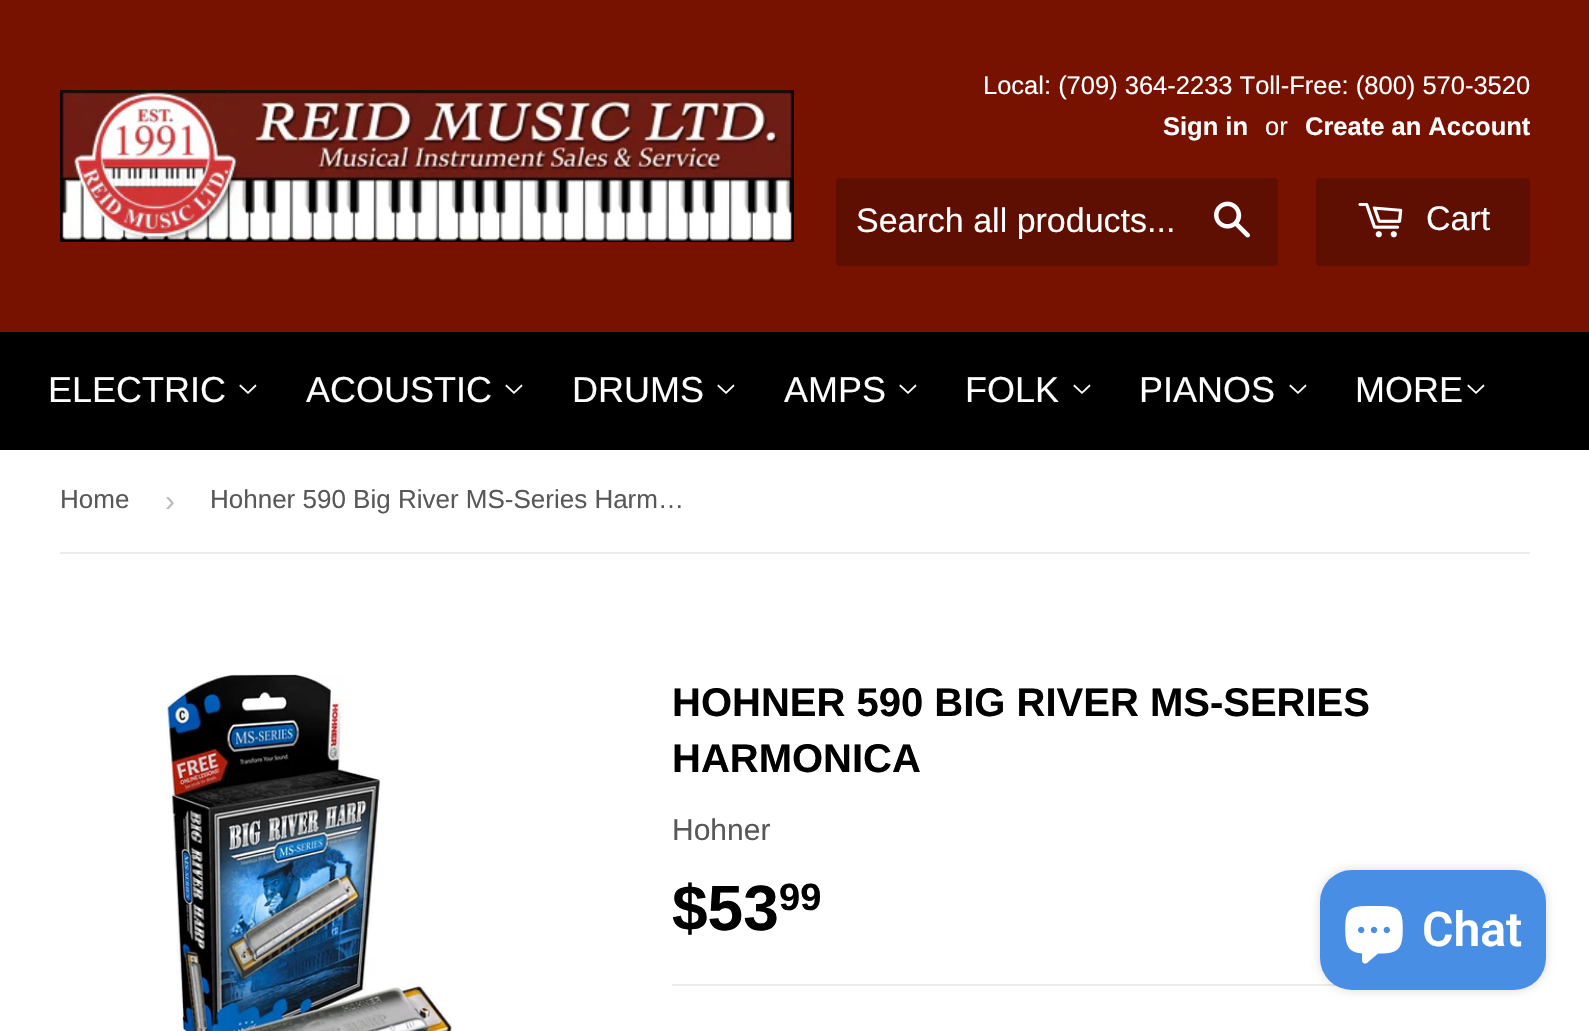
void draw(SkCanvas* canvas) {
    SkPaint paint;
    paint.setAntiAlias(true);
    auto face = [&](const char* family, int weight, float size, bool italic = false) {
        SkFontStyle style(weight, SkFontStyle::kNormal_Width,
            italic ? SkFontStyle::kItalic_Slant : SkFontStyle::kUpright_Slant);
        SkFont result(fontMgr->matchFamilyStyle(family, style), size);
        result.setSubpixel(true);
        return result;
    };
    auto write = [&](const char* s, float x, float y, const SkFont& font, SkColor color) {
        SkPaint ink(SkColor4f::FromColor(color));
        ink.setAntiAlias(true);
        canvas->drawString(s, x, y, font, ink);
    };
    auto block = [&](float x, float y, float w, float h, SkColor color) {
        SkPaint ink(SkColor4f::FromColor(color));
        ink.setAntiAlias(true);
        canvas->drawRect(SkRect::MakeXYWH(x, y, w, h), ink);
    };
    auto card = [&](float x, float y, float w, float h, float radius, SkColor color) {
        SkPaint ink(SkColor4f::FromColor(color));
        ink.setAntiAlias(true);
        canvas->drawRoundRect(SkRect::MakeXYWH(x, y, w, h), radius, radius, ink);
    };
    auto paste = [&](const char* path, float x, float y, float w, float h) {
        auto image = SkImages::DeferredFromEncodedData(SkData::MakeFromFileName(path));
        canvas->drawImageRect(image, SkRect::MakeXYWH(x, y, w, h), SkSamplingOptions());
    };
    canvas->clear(SK_ColorWHITE);
    block(0, 0, 1589, 332, SkColorSetRGB(119, 18, 1));
    paste("pic1.png", 60, 90, 734, 152);
    auto kFont1 = face("Liberation Sans", 400, 25.5f);
    write("Local: (709) 364-2233 Toll-Free: (800) 570-3520", 983, 94, kFont1, SK_ColorWHITE);
    auto kFont2 = face("Liberation Sans", 700, 25.5f);
    write("Sign in", 1163, 135, kFont2, SK_ColorWHITE);
    write("or", 1265, 135, kFont1, SK_ColorWHITE);
    write("Create an Account", 1305, 135, kFont2, SK_ColorWHITE);
    card(836, 178, 442, 88, 4, SkColorSetRGB(94, 15, 2));
    auto kFont3 = face("Liberation Sans", 400, 34);
    write("Search all products...", 856, 232, kFont3, SK_ColorWHITE);
    paste("pic2.png", 1214, 201, 36, 37);
    card(1316, 178, 214, 88, 4, SkColorSetRGB(94, 15, 2));
    paste("pic3.png", 1358, 203, 45, 35);
    write("Cart", 1426, 230, kFont3, SK_ColorWHITE);
    block(0, 332, 1589, 118, SK_ColorBLACK);
    auto kFont4 = face("Liberation Sans", 400, 36);
    write("ELECTRIC", 48, 402, kFont4, SK_ColorWHITE);
    paste("pic4.png", 239, 384, 18, 10);
    write("ACOUSTIC", 306, 402, kFont4, SK_ColorWHITE);
    paste("pic4.png", 505, 384, 18, 10);
    write("DRUMS", 572, 402, kFont4, SK_ColorWHITE);
    paste("pic4.png", 717, 384, 18, 10);
    write("AMPS", 784, 402, kFont4, SK_ColorWHITE);
    paste("pic4.png", 899, 384, 18, 10);
    write("FOLK", 965, 402, kFont4, SK_ColorWHITE);
    paste("pic4.png", 1073, 384, 18, 10);
    write("PIANOS", 1139, 402, kFont4, SK_ColorWHITE);
    paste("pic4.png", 1289, 384, 18, 10);
    write("MORE", 1355, 402, kFont4, SK_ColorWHITE);
    paste("pic4.png", 1467, 384, 18, 10);
    block(60, 552, 1470, 2, SkColorSetRGB(236, 236, 236));
    auto kFont5 = face("Liberation Sans", 400, 26);
    write("Home", 60, 508, kFont5, SkColorSetRGB(88, 88, 88));
    auto kFont6 = face("Liberation Sans", 400, 30);
    write("›", 165, 511, kFont6, SkColorSetRGB(187, 187, 187));
    write("Hohner 590 Big River MS-Series Harm…", 210, 508, kFont5, SkColorSetRGB(88, 88, 88));
    paste("pic5.png", 165, 674, 287, 357);
    auto kFont7 = face("Liberation Sans", 700, 40);
    write("HOHNER 590 BIG RIVER MS-SERIES", 672, 716, kFont7, SK_ColorBLACK);
    write("HARMONICA", 672, 772, kFont7, SK_ColorBLACK);
    write("Hohner", 672, 840, kFont6, SkColorSetRGB(88, 88, 88));
    auto kFont8 = face("Liberation Sans", 700, 64);
    write("$53", 672, 930, kFont8, SK_ColorBLACK);
    auto kFont9 = face("Liberation Sans", 700, 38);
    write("99", 779, 910, kFont9, SK_ColorBLACK);
    block(672, 984, 858, 2, SkColorSetRGB(236, 236, 236));
    paint.setColor(SkColorSetARGB(38, 0, 0, 0));
    paint.setMaskFilter(SkMaskFilter::MakeBlur(kNormal_SkBlurStyle, 5));
    canvas->drawRoundRect(SkRect::MakeXYWH(1320, 870, 226, 120), 32, 32, paint);
    paint.setMaskFilter(nullptr);
    card(1320, 870, 226, 120, 32, SkColorSetRGB(73, 142, 229));
    paste("pic6.png", 1345, 906, 58, 58);
    auto kFont10 = face("Roboto", 600, 48);
    write("Chat", 1422, 946, kFont10, SK_ColorWHITE);
}
